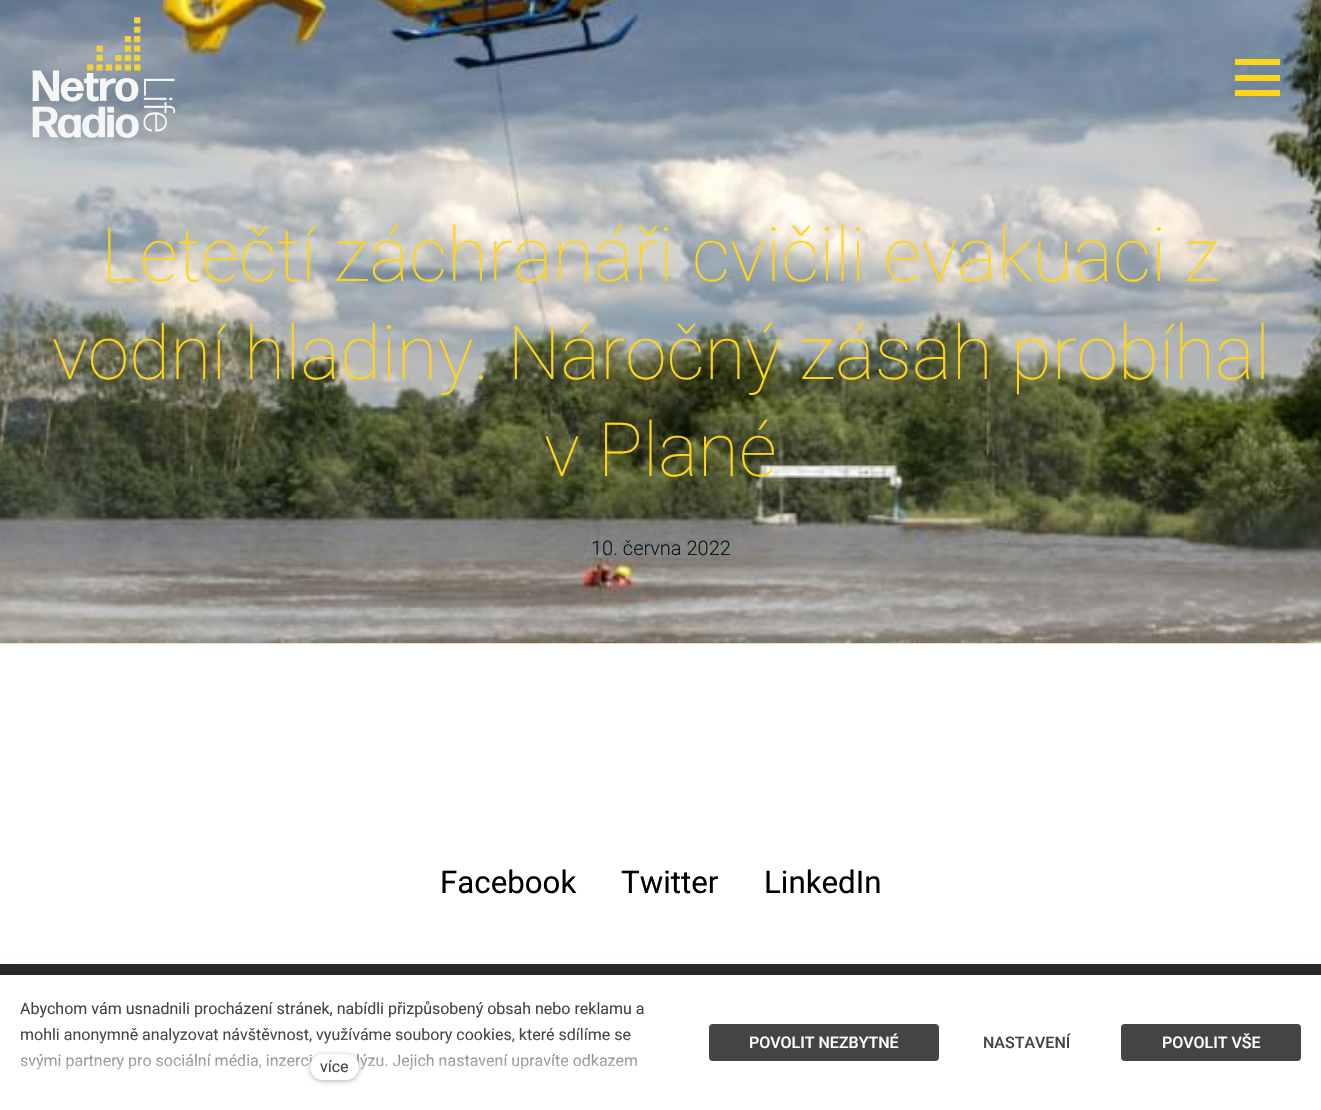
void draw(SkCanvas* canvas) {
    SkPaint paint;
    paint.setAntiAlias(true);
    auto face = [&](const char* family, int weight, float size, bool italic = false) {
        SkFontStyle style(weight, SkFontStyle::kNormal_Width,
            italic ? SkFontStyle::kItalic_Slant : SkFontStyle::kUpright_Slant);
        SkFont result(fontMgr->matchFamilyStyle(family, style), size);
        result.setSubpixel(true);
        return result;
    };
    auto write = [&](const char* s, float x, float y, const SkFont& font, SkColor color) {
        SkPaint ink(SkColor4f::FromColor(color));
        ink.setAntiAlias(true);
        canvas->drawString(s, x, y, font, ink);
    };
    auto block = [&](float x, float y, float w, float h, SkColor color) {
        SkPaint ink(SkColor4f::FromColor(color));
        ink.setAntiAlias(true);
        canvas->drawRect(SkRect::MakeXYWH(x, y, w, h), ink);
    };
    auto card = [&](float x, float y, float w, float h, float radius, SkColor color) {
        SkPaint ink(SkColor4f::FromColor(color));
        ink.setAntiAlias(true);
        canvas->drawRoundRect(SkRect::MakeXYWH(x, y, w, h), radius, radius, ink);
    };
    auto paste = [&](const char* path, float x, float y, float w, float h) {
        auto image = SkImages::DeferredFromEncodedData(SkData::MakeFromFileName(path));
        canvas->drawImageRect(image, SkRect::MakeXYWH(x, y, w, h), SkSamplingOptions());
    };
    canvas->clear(SK_ColorWHITE);
    paste("pic2.png", 0, 0, 1321, 644);
    paste("pic1.png", 32, 17, 144, 121);
    block(1235, 59, 45, 6, SkColorSetRGB(255, 213, 27));
    block(1235, 75, 45, 6, SkColorSetRGB(255, 213, 27));
    block(1235, 90, 45, 6, SkColorSetRGB(255, 213, 27));
    auto kFont1 = face("Roboto", 100, 75);
    write("Letečtí záchranáři cvičili evakuaci z", 101, 281, kFont1, SkColorSetRGB(255, 213, 27));
    write("vodní hladiny. Náročný zásah probíhal", 52, 379, kFont1, SkColorSetRGB(255, 213, 27));
    write("v Plané", 544, 476, kFont1, SkColorSetRGB(255, 213, 27));
    auto kFont2 = face("Roboto", 300, 20);
    write("10. června 2022", 591, 555, kFont2, SkColorSetRGB(17, 21, 23));
    auto kFont3 = face("Roboto", 400, 31.25f);
    write("Facebook", 440, 893, kFont3, SK_ColorBLACK);
    write("Twitter", 621, 893, kFont3, SK_ColorBLACK);
    write("LinkedIn", 764, 893, kFont3, SK_ColorBLACK);
    block(0, 964, 1321, 11, SkColorSetRGB(42, 42, 42));
    paint.setColor(SkColorSetARGB(64, 0, 0, 0));
    paint.setMaskFilter(SkMaskFilter::MakeBlur(kNormal_SkBlurStyle, 7.5f));
    canvas->drawRect(SkRect::MakeXYWH(0, 975, 1321, 135), paint);
    paint.setMaskFilter(nullptr);
    block(0, 975, 1321, 135, SK_ColorWHITE);
    auto kFont4 = face("Roboto", 400, 16);
    write("Abychom vám usnadnili procházení stránek, nabídli přizpůsobený obsah nebo reklamu a", 20, 1014, kFont4, SkColorSetRGB(68, 68, 68));
    write("mohli anonymně analyzovat návštěvnost, využíváme soubory cookies, které sdílíme se", 20, 1040, kFont4, SkColorSetRGB(68, 68, 68));
    write("svými partnery pro sociální média, inzerci", 20, 1066, kFont4, SkColorSetRGB(68, 68, 68));
    write("lýzu. Jejich nastavení upravíte odkazem", 356, 1066, kFont4, SkColorSetRGB(68, 68, 68));
    {
        const SkColor colors[] = {SK_ColorWHITE, SkColorSetARGB(0, 255, 255, 255)};
        const float stops[] = {0, 1};
        const SkPoint ends[] = {{334, 1090}, {334, 1035}};
        paint.setShader(SkGradientShader::MakeLinear(ends, colors, stops, 2, SkTileMode::kClamp));
        paint.setAlpha(255);
    }
    canvas->drawRect(SkRect::MakeXYWH(20, 1036, 617, 34), paint);
    paint.setShader(nullptr);
    paint.setColor(SkColorSetARGB(77, 0, 0, 0));
    paint.setMaskFilter(SkMaskFilter::MakeBlur(kNormal_SkBlurStyle, 2.5f));
    canvas->drawRoundRect(SkRect::MakeXYWH(310, 1055, 49, 26), 13, 13, paint);
    paint.setMaskFilter(nullptr);
    card(310, 1054, 49, 26, 13, SK_ColorWHITE);
    write("více", 320, 1072, kFont4, SkColorSetRGB(68, 68, 68));
    card(709, 1024, 230, 37, 4, SkColorSetRGB(68, 68, 68));
    auto kFont5 = face("Roboto", 500, 16);
    write("POVOLIT NEZBYTNÉ", 749, 1048, kFont5, SK_ColorWHITE);
    write("NASTAVENÍ", 983, 1048, kFont5, SkColorSetRGB(68, 68, 68));
    card(1121, 1024, 180, 37, 4, SkColorSetRGB(68, 68, 68));
    write("POVOLIT VŠE", 1162, 1048, kFont5, SK_ColorWHITE);
}
